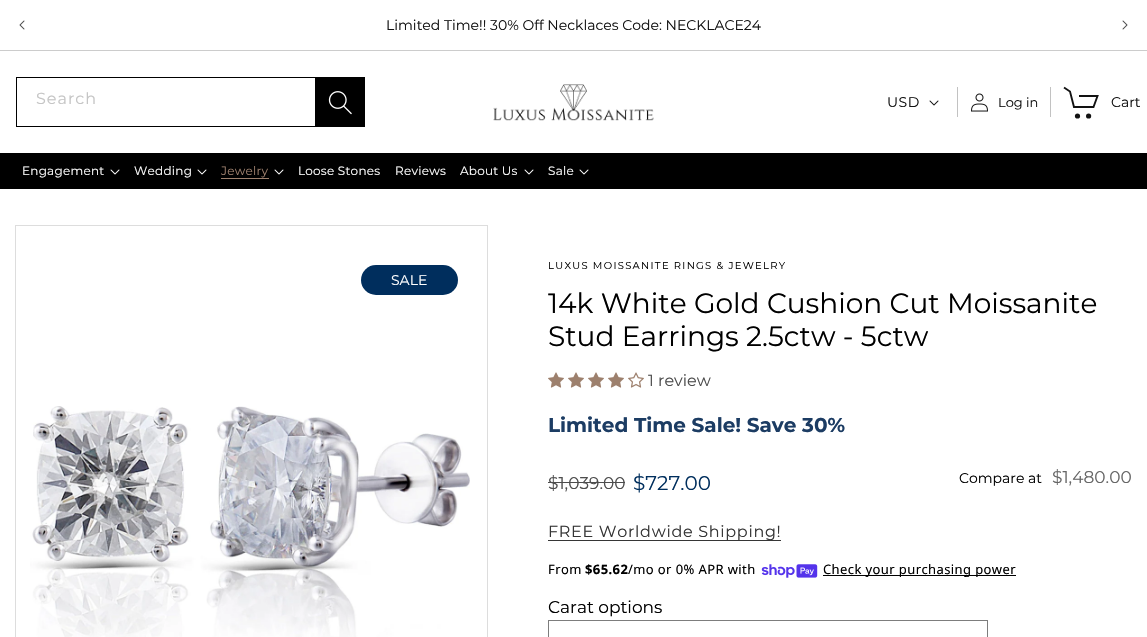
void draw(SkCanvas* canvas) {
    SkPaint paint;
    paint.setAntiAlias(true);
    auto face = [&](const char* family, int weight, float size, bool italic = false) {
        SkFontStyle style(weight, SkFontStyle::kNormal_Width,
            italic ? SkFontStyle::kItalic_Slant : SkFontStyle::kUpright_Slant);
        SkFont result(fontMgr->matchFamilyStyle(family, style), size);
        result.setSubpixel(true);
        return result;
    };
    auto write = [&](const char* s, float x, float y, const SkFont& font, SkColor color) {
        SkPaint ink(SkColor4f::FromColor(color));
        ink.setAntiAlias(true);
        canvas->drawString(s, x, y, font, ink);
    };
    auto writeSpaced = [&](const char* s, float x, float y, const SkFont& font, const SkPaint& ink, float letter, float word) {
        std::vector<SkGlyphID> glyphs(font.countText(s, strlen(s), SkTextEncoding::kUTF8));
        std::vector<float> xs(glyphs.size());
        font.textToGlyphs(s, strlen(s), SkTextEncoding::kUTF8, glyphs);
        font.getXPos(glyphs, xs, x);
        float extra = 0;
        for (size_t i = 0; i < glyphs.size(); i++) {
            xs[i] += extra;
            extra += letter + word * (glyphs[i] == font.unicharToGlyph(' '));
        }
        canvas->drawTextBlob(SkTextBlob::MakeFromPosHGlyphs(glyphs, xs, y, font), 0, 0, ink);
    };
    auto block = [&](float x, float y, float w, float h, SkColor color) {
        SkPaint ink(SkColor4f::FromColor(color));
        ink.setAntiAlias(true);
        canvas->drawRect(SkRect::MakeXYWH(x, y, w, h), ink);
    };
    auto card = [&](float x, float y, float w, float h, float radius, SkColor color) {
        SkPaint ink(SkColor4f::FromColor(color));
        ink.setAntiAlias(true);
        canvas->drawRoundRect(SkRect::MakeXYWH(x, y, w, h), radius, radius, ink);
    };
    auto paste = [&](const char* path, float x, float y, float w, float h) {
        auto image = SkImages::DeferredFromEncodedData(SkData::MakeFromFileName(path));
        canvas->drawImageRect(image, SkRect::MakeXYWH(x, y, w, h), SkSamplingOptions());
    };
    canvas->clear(SK_ColorWHITE);
    block(0, 50, 1147, 1, SkColorSetRGB(204, 204, 204));
    paste("pic1.png", 19, 20, 6, 10);
    auto kFont1 = face("Montserrat", 400, 14);
    write("Limited Time!! 30% Off Necklaces Code: NECKLACE24", 386, 30, kFont1, SkColorSetRGB(18, 18, 18));
    paste("pic2.png", 1122, 20, 6, 10);
    paint.setStyle(SkPaint::kStroke_Style);
    paint.setStrokeWidth(1);
    paint.setColor(SK_ColorBLACK);
    canvas->drawRect(SkRect::MakeXYWH(16.5f, 77.5f, 347, 49), paint);
    auto kFont2 = face("Montserrat", 400, 16);
    paint.setStyle(SkPaint::kFill_Style);
    paint.setColor(SkColorSetRGB(197, 197, 197));
    writeSpaced("Search", 36, 104, kFont2, paint, 1, 0);
    block(315, 77, 50, 50, SK_ColorBLACK);
    paste("pic3.png", 328, 91, 24, 24);
    paste("pic4.png", 493, 84, 161, 37);
    paint.setColor(SkColorSetRGB(18, 18, 18));
    writeSpaced("USD", 887, 107, kFont1, paint, 0.5f, 0);
    paste("pic5.png", 929, 100, 10, 6);
    block(1050, 87, 1, 30, SkColorSetRGB(194, 194, 194));
    block(957, 87, 1, 30, SkColorSetRGB(194, 194, 194));
    paste("pic6.png", 971, 93, 17, 19);
    auto kFont3 = face("Montserrat", 400, 13);
    write("Log in", 998, 107, kFont3, SkColorSetRGB(18, 18, 18));
    canvas->drawCircle(1077.5f, 116, 2.6f, paint);
    canvas->drawCircle(1088.6f, 116, 2.6f, paint);
    paint.setStyle(SkPaint::kStroke_Style);
    paint.setStrokeWidth(1.9f);
    canvas->drawPath(SkPathBuilder().moveTo(1064, 87.5f).lineTo(1070, 91.5f).lineTo(1074, 107).lineTo(1093.5f, 107).lineTo(1097.5f, 96).lineTo(1079, 96).detach(), paint);
    write("Cart", 1111, 107, kFont1, SkColorSetRGB(18, 18, 18));
    block(0, 153, 1147, 36, SK_ColorBLACK);
    auto kFont4 = face("Montserrat", 400, 12);
    paint.setStyle(SkPaint::kFill_Style);
    paint.setColor(SK_ColorWHITE);
    writeSpaced("Engagement", 22, 175, kFont4, paint, 0.25f, 0);
    paste("pic7.png", 110, 169, 10, 6);
    writeSpaced("Wedding", 134, 175, kFont4, paint, 0.25f, 0);
    paste("pic7.png", 197, 169, 10, 6);
    paint.setColor(SkColorSetRGB(157, 128, 109));
    writeSpaced("Jewelry", 221, 175, kFont4, paint, 0.25f, 0);
    block(221, 178, 48, 1, SkColorSetRGB(157, 128, 109));
    paste("pic7.png", 274, 169, 10, 6);
    paint.setColor(SK_ColorWHITE);
    writeSpaced("Loose Stones", 298, 175, kFont4, paint, 0.25f, 0);
    writeSpaced("Reviews", 395, 175, kFont4, paint, 0.25f, 0);
    writeSpaced("About Us", 460, 175, kFont4, paint, 0.25f, 0);
    paste("pic7.png", 524, 169, 10, 6);
    writeSpaced("Sale", 548, 175, kFont4, paint, 0.25f, 0);
    paste("pic7.png", 579, 169, 10, 6);
    paint.setStyle(SkPaint::kStroke_Style);
    paint.setStrokeWidth(1);
    paint.setColor(SkColorSetRGB(221, 221, 221));
    canvas->drawRect(SkRect::MakeXYWH(15.5f, 225.5f, 472, 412), paint);
    paste("pic8.png", 30, 406, 440, 231);
    card(361, 265, 97, 30, 15, SkColorSetRGB(0, 46, 93));
    write("SALE", 391, 285, kFont1, SK_ColorWHITE);
    auto kFont5 = face("Montserrat", 400, 10);
    paint.setStyle(SkPaint::kFill_Style);
    paint.setColor(SK_ColorBLACK);
    writeSpaced("LUXUS MOISSANITE RINGS & JEWELRY", 548, 269, kFont5, paint, 1.3f, 0);
    auto kFont6 = face("Montserrat", 400, 28);
    write("14k White Gold Cushion Cut Moissanite", 548, 313, kFont6, SK_ColorBLACK);
    write("Stud Earrings 2.5ctw - 5ctw", 548, 346, kFont6, SK_ColorBLACK);
    paste("pic9.png", 548, 372, 16, 16);
    paste("pic9.png", 568, 372, 16, 16);
    paste("pic9.png", 588, 372, 16, 16);
    paste("pic9.png", 608, 372, 16, 16);
    paste("pic10.png", 628, 372, 16, 16);
    write("1 review", 648, 386, kFont2, SkColorSetRGB(77, 77, 77));
    auto kFont7 = face("Montserrat", 700, 20);
    write("Limited Time Sale! Save 30%", 548, 432, kFont7, SkColorSetRGB(28, 60, 99));
    auto kFont8 = face("Montserrat", 400, 17);
    write("$1,039.00", 548, 489, kFont8, SkColorSetRGB(77, 77, 77));
    block(548, 482, 77, 1, SkColorSetRGB(77, 77, 77));
    auto kFont9 = face("Montserrat", 400, 20);
    write("$727.00", 633, 490, kFont9, SkColorSetRGB(0, 46, 93));
    write("Compare at", 959, 483, kFont1, SK_ColorBLACK);
    write("$1,480.00", 1052, 483, kFont8, SkColorSetRGB(102, 102, 102));
    block(548, 540, 233, 1, SkColorSetRGB(54, 54, 54));
    paint.setColor(SkColorSetRGB(53, 53, 53));
    writeSpaced("FREE Worldwide Shipping!", 548, 537, kFont2, paint, 0.7f, 0);
    auto kFont10 = face("Noto Sans", 400, 13);
    paint.setColor(SK_ColorBLACK);
    writeSpaced("From", 548, 574, kFont10, paint, 0.4f, 0);
    auto kFont11 = face("Noto Sans", 700, 13);
    writeSpaced("$65.62", 585, 574, kFont11, paint, 0.4f, 0);
    writeSpaced("/mo or 0% APR with", 628, 574, kFont10, paint, 0.4f, 0);
    paste("pic11.png", 761, 564, 57, 14);
    block(823, 575, 193, 1, SK_ColorBLACK);
    writeSpaced("Check your purchasing power", 823, 574, kFont10, paint, 0.4f, 0);
    write("Carat options", 548, 613, kFont8, SK_ColorBLACK);
    paint.setStyle(SkPaint::kStroke_Style);
    paint.setColor(SkColorSetRGB(125, 125, 125));
    canvas->drawRect(SkRect::MakeXYWH(548.5f, 620.5f, 439, 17), paint);
}
